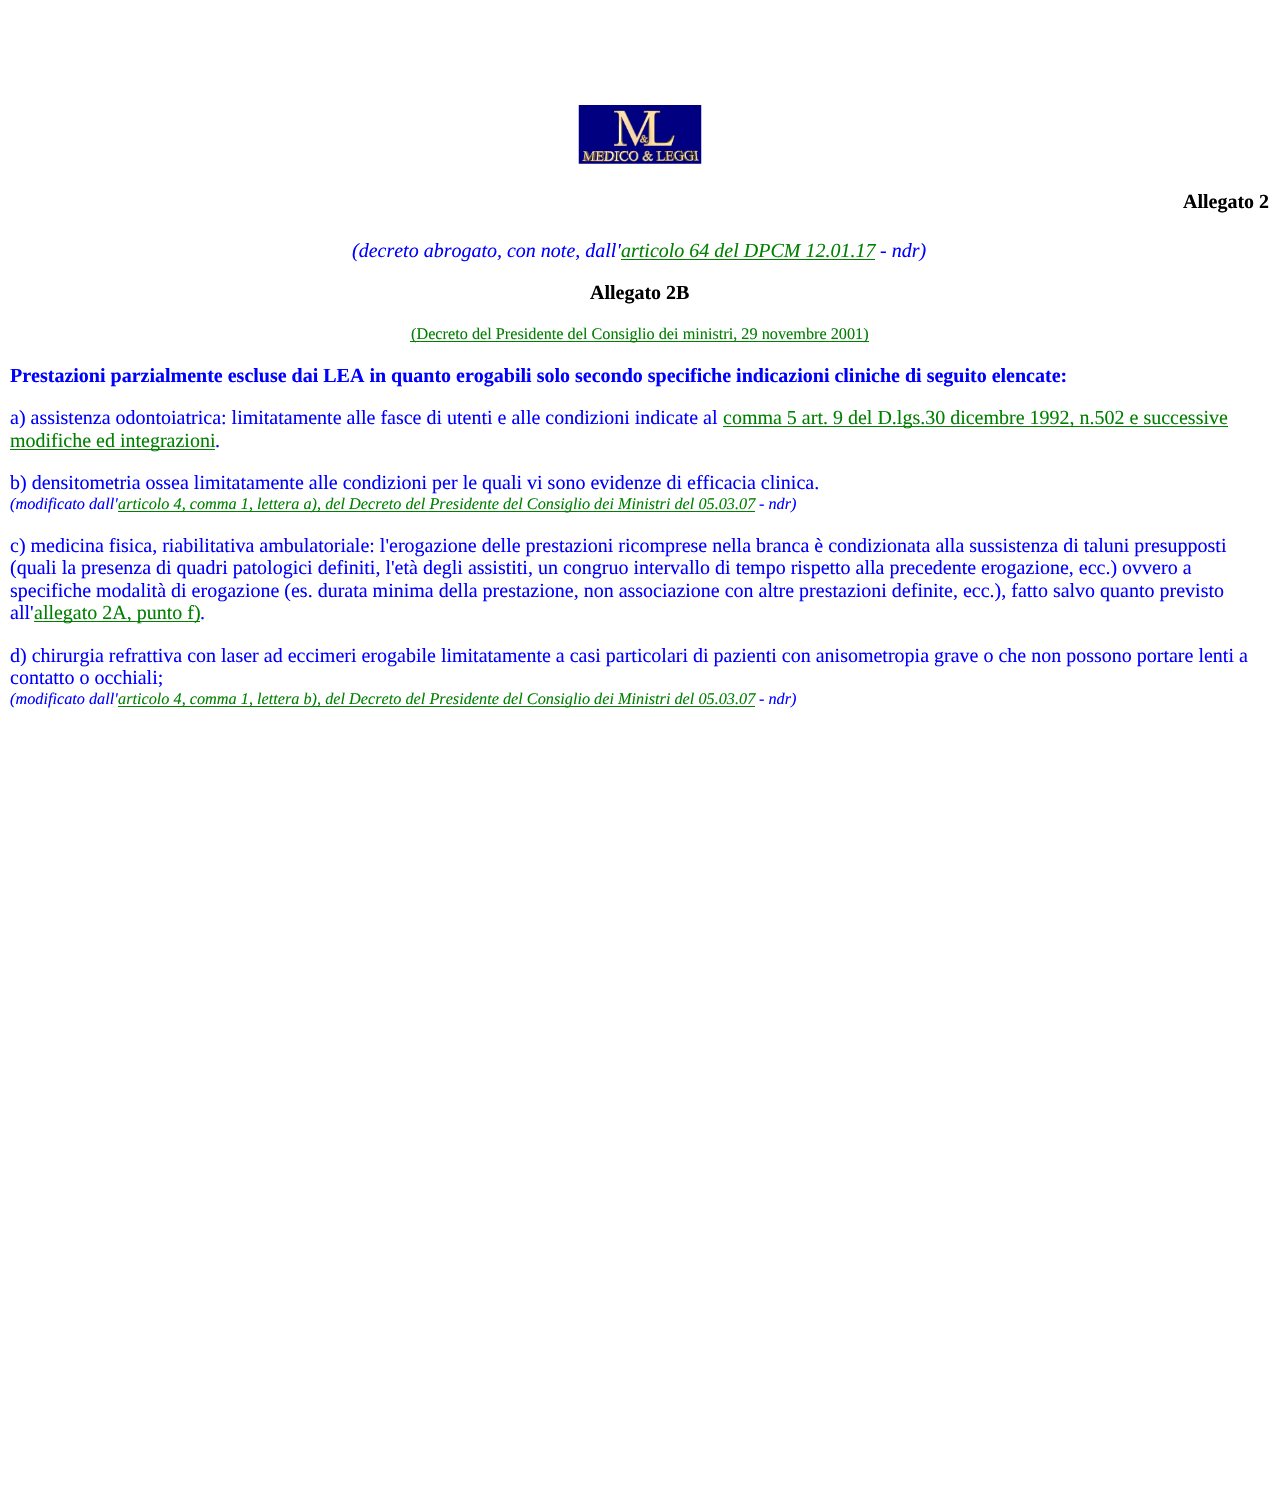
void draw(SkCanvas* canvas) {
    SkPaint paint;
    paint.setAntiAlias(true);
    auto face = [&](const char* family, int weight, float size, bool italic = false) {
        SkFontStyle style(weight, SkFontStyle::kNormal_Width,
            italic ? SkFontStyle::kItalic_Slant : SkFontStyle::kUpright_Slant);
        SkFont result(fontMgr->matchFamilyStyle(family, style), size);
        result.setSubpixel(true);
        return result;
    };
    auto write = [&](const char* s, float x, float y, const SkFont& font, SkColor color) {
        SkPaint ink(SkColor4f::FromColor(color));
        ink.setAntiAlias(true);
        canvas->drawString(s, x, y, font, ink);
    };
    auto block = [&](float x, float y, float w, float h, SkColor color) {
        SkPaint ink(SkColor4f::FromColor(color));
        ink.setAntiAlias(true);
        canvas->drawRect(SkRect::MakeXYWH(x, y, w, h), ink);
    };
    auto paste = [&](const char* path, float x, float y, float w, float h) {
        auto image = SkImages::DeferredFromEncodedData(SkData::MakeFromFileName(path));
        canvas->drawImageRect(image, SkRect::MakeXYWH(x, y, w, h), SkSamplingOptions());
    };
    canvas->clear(SK_ColorWHITE);
    paste("pic1.png", 578, 105, 124, 59);
    auto kFont1 = face("Liberation Serif", 700, 20);
    write("Allegato 2", 1183, 208, kFont1, SK_ColorBLACK);
    auto kFont2 = face("Liberation Serif", 400, 20, true);
    write("(decreto abrogato, con note, dall'", 352, 257, kFont2, SkColorSetRGB(0, 0, 255));
    write("articolo 64 del DPCM 12.01.17", 621, 257, kFont2, SkColorSetRGB(0, 128, 0));
    block(621, 259, 254, 1, SkColorSetRGB(0, 128, 0));
    write("- ndr)", 880, 257, kFont2, SkColorSetRGB(0, 0, 255));
    write("Allegato 2B", 590, 299, kFont1, SK_ColorBLACK);
    block(410, 341, 459, 1, SkColorSetRGB(0, 128, 0));
    auto kFont3 = face("Liberation Serif", 400, 16.25f);
    write("(Decreto del Presidente del Consiglio dei ministri, 29 novembre 2001)", 411, 339, kFont3, SkColorSetRGB(0, 128, 0));
    write("Prestazioni parzialmente escluse dai LEA in quanto erogabili solo secondo specifiche indicazioni cliniche di seguito elencate:", 10, 382, kFont1, SkColorSetRGB(0, 0, 255));
    auto kFont4 = face("Liberation Serif", 400, 20);
    write("a) assistenza odontoiatrica: limitatamente alle fasce di utenti e alle condizioni indicate al", 10, 424, kFont4, SkColorSetRGB(0, 0, 255));
    block(723, 426, 505, 1, SkColorSetRGB(0, 128, 0));
    write("comma 5 art. 9 del D.lgs.30 dicembre 1992, n.502 e successive", 723, 424, kFont4, SkColorSetRGB(0, 128, 0));
    block(10, 449, 205, 1, SkColorSetRGB(0, 128, 0));
    write("modifiche ed integrazioni", 10, 447, kFont4, SkColorSetRGB(0, 128, 0));
    write(".", 215, 447, kFont4, SkColorSetRGB(0, 0, 255));
    write("b) densitometria ossea limitatamente alle condizioni per le quali vi sono evidenze di efficacia clinica.", 10, 489, kFont4, SkColorSetRGB(0, 0, 255));
    auto kFont5 = face("Liberation Serif", 400, 16.25f, true);
    write("(modificato dall'", 10, 509, kFont5, SkColorSetRGB(0, 0, 255));
    block(118, 511, 637, 1, SkColorSetRGB(0, 128, 0));
    write("articolo 4, comma 1, lettera a), del Decreto del Presidente del Consiglio dei Ministri del 05.03.07", 118, 509, kFont5, SkColorSetRGB(0, 128, 0));
    write("- ndr)", 759, 509, kFont5, SkColorSetRGB(0, 0, 255));
    write("c) medicina fisica, riabilitativa ambulatoriale: l'erogazione delle prestazioni ricomprese nella branca è condizionata alla sussistenza di taluni presupposti", 10, 552, kFont4, SkColorSetRGB(0, 0, 255));
    write("(quali la presenza di quadri patologici definiti, l'età degli assistiti, un congruo intervallo di tempo rispetto alla precedente erogazione, ecc.) ovvero a", 10, 574, kFont4, SkColorSetRGB(0, 0, 255));
    write("specifiche modalità di erogazione (es. durata minima della prestazione, non associazione con altre prestazioni definite, ecc.), fatto salvo quanto previsto", 10, 597, kFont4, SkColorSetRGB(0, 0, 255));
    write("all'", 10, 619, kFont4, SkColorSetRGB(0, 0, 255));
    block(34, 621, 166, 1, SkColorSetRGB(0, 128, 0));
    write("allegato 2A, punto f)", 34, 619, kFont4, SkColorSetRGB(0, 128, 0));
    write(".", 200, 619, kFont4, SkColorSetRGB(0, 0, 255));
    write("d) chirurgia refrattiva con laser ad eccimeri erogabile limitatamente a casi particolari di pazienti con anisometropia grave o che non possono portare lenti a", 10, 662, kFont4, SkColorSetRGB(0, 0, 255));
    write("contatto o occhiali;", 10, 684, kFont4, SkColorSetRGB(0, 0, 255));
    write("(modificato dall'", 10, 704, kFont5, SkColorSetRGB(0, 0, 255));
    block(118, 706, 637, 1, SkColorSetRGB(0, 128, 0));
    write("articolo 4, comma 1, lettera b), del Decreto del Presidente del Consiglio dei Ministri del 05.03.07", 118, 704, kFont5, SkColorSetRGB(0, 128, 0));
    write("- ndr)", 759, 704, kFont5, SkColorSetRGB(0, 0, 255));
}
